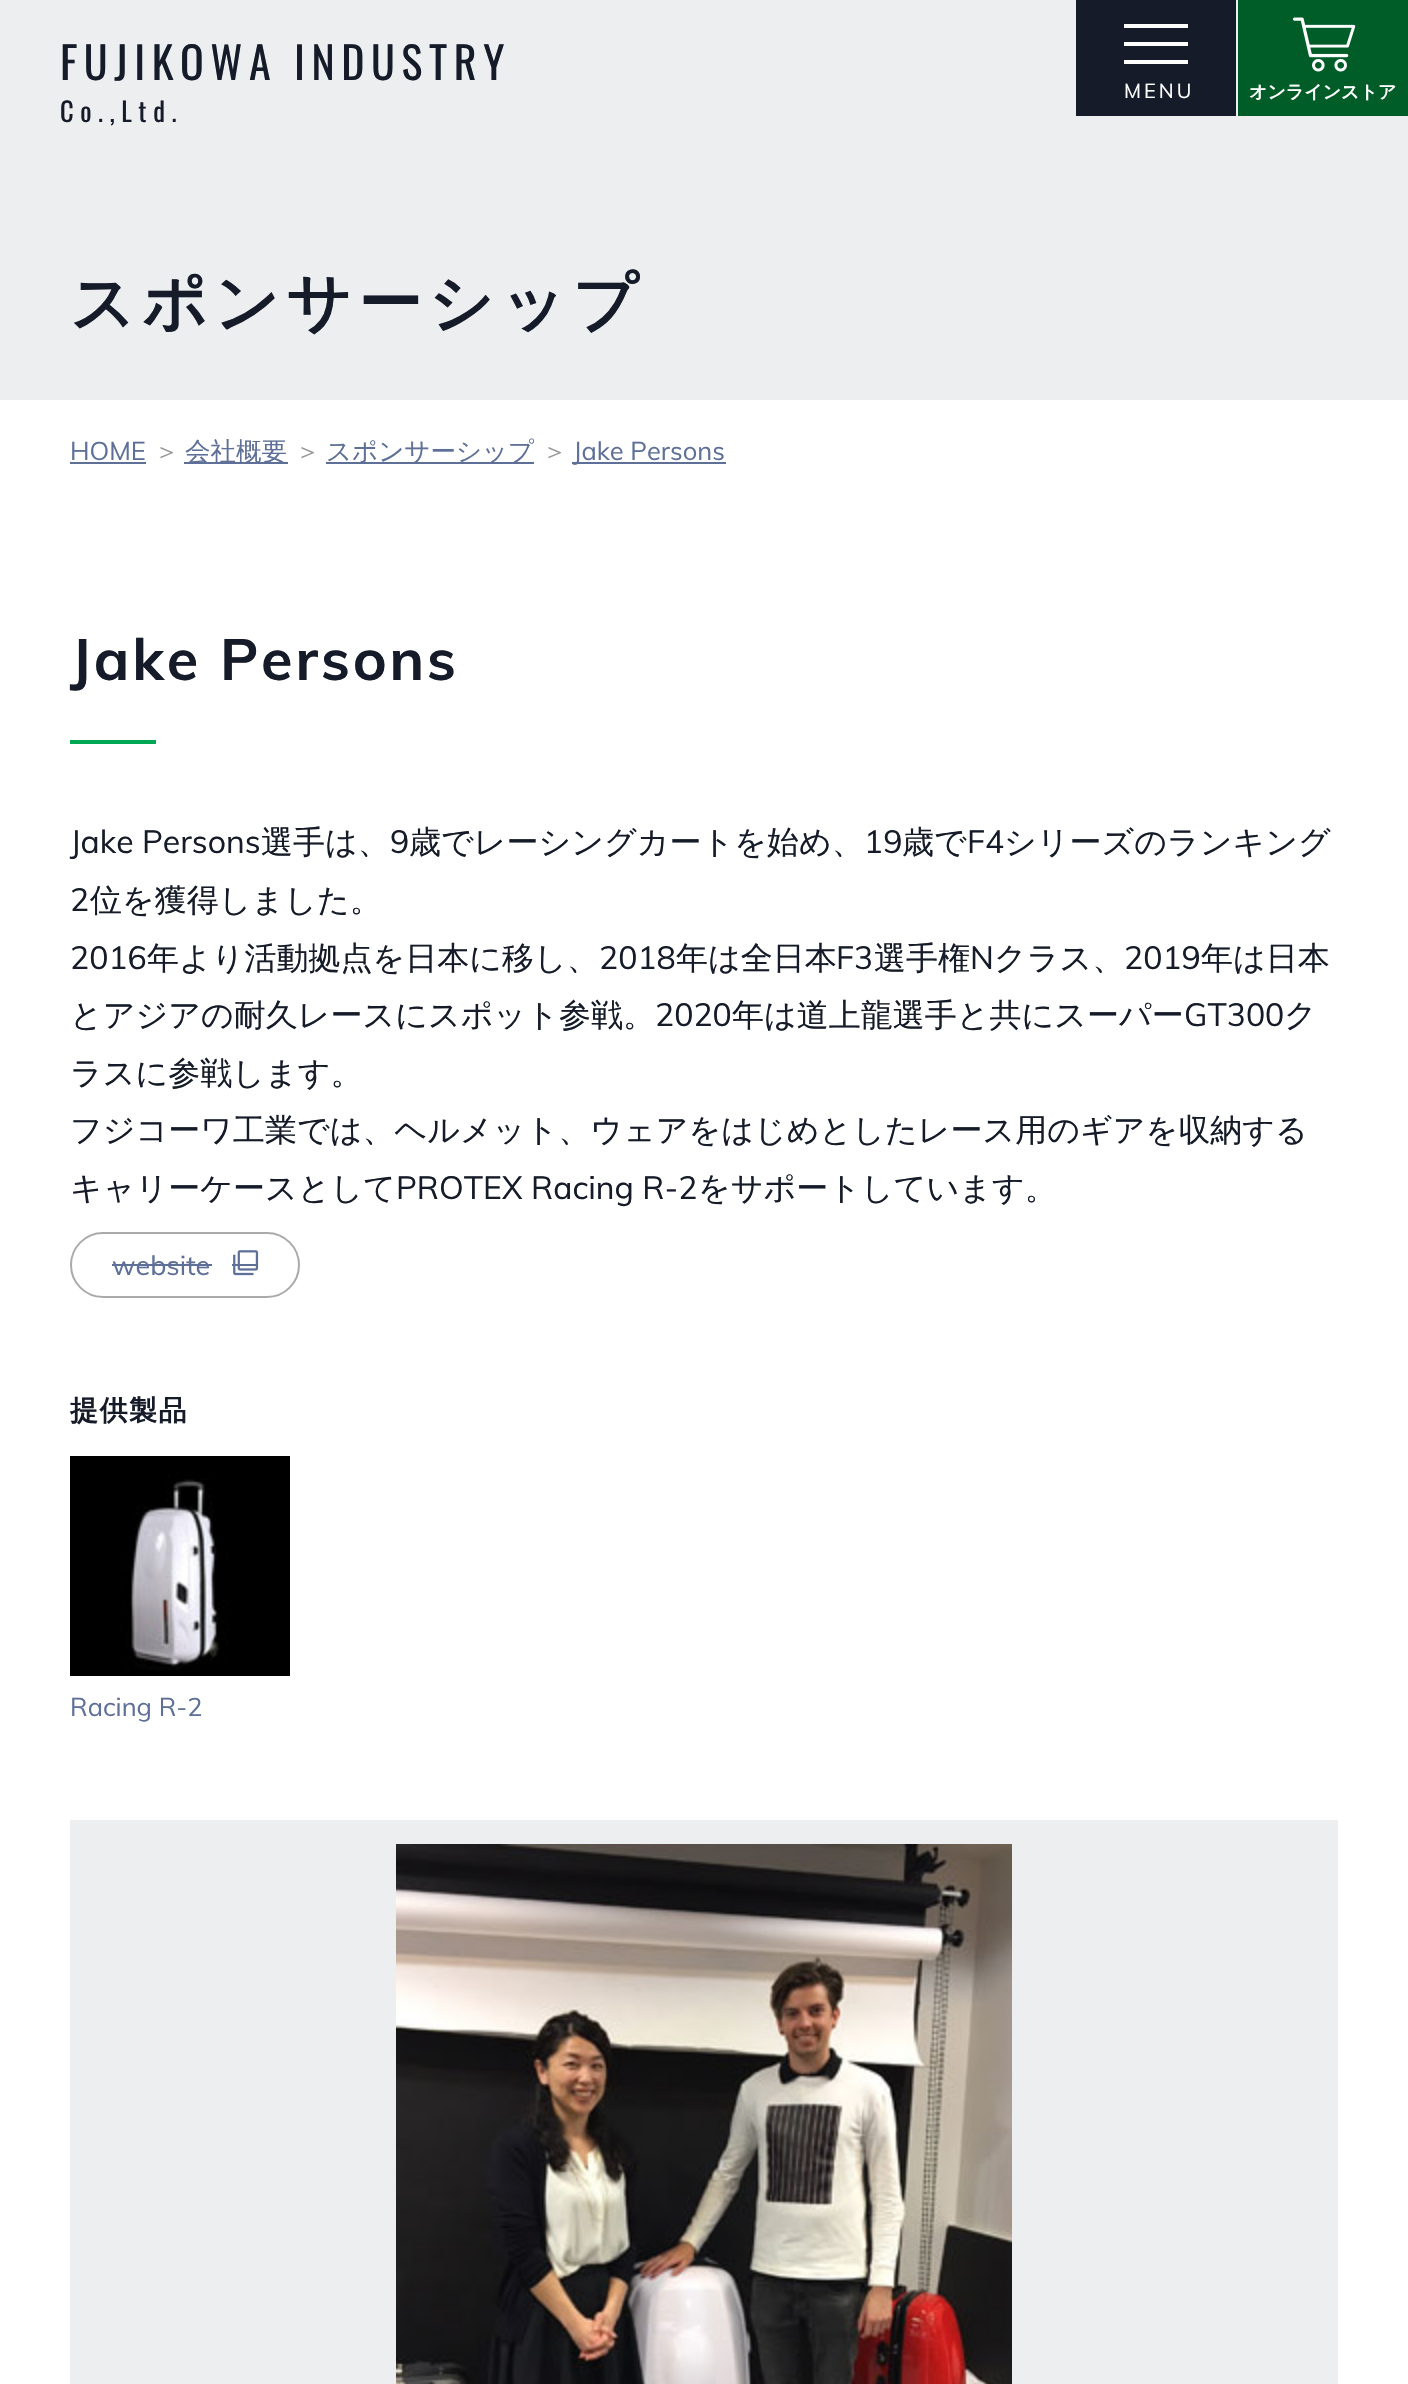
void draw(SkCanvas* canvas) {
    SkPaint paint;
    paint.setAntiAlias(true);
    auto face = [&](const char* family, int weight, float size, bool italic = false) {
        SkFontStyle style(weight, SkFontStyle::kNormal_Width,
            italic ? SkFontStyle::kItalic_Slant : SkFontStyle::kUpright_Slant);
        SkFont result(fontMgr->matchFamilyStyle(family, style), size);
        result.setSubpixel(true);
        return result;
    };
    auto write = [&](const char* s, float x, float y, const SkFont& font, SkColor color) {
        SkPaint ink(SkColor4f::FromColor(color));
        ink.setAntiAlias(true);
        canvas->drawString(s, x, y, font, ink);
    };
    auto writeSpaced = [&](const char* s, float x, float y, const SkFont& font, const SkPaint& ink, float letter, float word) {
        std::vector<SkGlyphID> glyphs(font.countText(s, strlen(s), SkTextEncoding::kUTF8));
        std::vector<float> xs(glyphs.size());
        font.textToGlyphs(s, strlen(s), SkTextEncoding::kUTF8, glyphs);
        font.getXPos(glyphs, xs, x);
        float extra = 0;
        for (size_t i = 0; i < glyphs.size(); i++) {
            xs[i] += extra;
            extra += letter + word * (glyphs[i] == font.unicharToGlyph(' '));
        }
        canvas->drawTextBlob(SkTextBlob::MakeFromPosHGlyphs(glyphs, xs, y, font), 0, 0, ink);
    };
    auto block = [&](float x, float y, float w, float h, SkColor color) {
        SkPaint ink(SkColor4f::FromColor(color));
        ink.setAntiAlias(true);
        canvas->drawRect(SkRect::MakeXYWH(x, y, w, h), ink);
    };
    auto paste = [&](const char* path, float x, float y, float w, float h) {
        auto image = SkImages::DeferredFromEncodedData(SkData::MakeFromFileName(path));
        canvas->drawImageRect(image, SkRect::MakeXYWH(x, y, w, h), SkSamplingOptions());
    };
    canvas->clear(SK_ColorWHITE);
    block(0, 0, 1408, 400, SkColorSetRGB(236, 238, 240));
    auto kFont1 = face("Oswald", 400, 44);
    paint.setColor(SkColorSetRGB(21, 27, 40));
    writeSpaced("FUJIKOWA INDUSTRY", 60, 80, kFont1, paint, 6.6f, 0);
    auto kFont2 = face("Oswald", 400, 26.5f);
    writeSpaced("Co.,Ltd.", 60, 122, kFont2, paint, 6.6f, 0);
    block(1076, 0, 160, 116, SkColorSetRGB(21, 27, 40));
    block(1124, 24, 64, 4, SK_ColorWHITE);
    block(1124, 42, 64, 4, SK_ColorWHITE);
    block(1124, 60, 64, 4, SK_ColorWHITE);
    auto kFont3 = face("Muli", 400, 20);
    paint.setColor(SK_ColorWHITE);
    writeSpaced("MENU", 1124, 98, kFont3, paint, 3, 0);
    block(1238, 0, 170, 116, SkColorSetRGB(0, 93, 39));
    paste("pic1.png", 1293, 17, 63, 55);
    auto kFont4 = face("WenQuanYi Zen Hei", 700, 18);
    write("オンラインストア", 1249, 98, kFont4, SK_ColorWHITE);
    auto kFont5 = face("WenQuanYi Zen Hei", 700, 64);
    paint.setColor(SkColorSetRGB(21, 27, 40));
    writeSpaced("スポンサーシップ", 70, 325, kFont5, paint, 6.5f, 0);
    auto kFont6 = face("Muli", 400, 25.5f);
    write("HOME", 70, 460, kFont6, SkColorSetRGB(94, 112, 151));
    block(70, 462, 76, 2, SkColorSetRGB(94, 112, 151));
    auto kFont7 = face("WenQuanYi Zen Hei", 500, 25.5f);
    write("＞", 154, 460, kFont7, SkColorSetRGB(150, 150, 150));
    block(184, 462, 104, 2, SkColorSetRGB(94, 112, 151));
    write("会社概要", 185, 460, kFont7, SkColorSetRGB(94, 112, 151));
    write("＞", 295, 460, kFont7, SkColorSetRGB(150, 150, 150));
    block(326, 462, 208, 2, SkColorSetRGB(94, 112, 151));
    write("スポンサーシップ", 326, 460, kFont7, SkColorSetRGB(94, 112, 151));
    write("＞", 542, 460, kFont7, SkColorSetRGB(150, 150, 150));
    block(572, 462, 154, 2, SkColorSetRGB(94, 112, 151));
    write("Jake Persons", 573, 460, kFont6, SkColorSetRGB(94, 112, 151));
    auto kFont8 = face("Muli", 700, 57.5f);
    writeSpaced("Jake Persons", 70, 680, kFont8, paint, 2.9f, 0);
    block(70, 740, 86, 4, SkColorSetRGB(0, 167, 83));
    auto kFont9 = face("Muli", 400, 32);
    write("Jake Persons", 70, 853, kFont9, SkColorSetRGB(21, 27, 40));
    auto kFont10 = face("WenQuanYi Zen Hei", 500, 32);
    write("選手は、", 261, 853, kFont10, SkColorSetRGB(21, 27, 40));
    write("9", 390, 853, kFont9, SkColorSetRGB(21, 27, 40));
    write("歳でレーシングカートを始め、", 409, 853, kFont10, SkColorSetRGB(21, 27, 40));
    write("19", 864, 853, kFont9, SkColorSetRGB(21, 27, 40));
    write("歳で", 902, 853, kFont10, SkColorSetRGB(21, 27, 40));
    write("F4", 967, 853, kFont9, SkColorSetRGB(21, 27, 40));
    write("シリーズのランキング", 1004, 853, kFont10, SkColorSetRGB(21, 27, 40));
    write("2", 70, 911, kFont9, SkColorSetRGB(21, 27, 40));
    write("位を獲得しました。", 90, 911, kFont10, SkColorSetRGB(21, 27, 40));
    write("2016", 70, 969, kFont9, SkColorSetRGB(21, 27, 40));
    write("年より活動拠点を日本に移し、", 147, 969, kFont10, SkColorSetRGB(21, 27, 40));
    write("2018", 599, 969, kFont9, SkColorSetRGB(21, 27, 40));
    write("年は全日本", 676, 969, kFont10, SkColorSetRGB(21, 27, 40));
    write("F3", 836, 969, kFont9, SkColorSetRGB(21, 27, 40));
    write("選手権", 874, 969, kFont10, SkColorSetRGB(21, 27, 40));
    write("N", 970, 969, kFont9, SkColorSetRGB(21, 27, 40));
    write("クラス、", 994, 969, kFont10, SkColorSetRGB(21, 27, 40));
    write("2019", 1124, 969, kFont9, SkColorSetRGB(21, 27, 40));
    write("年は日本", 1201, 969, kFont10, SkColorSetRGB(21, 27, 40));
    write("とアジアの耐久レースにスポット参戦。", 70, 1026, kFont10, SkColorSetRGB(21, 27, 40));
    write("2020", 655, 1026, kFont9, SkColorSetRGB(21, 27, 40));
    write("年は道上龍選手と共にスーパー", 732, 1026, kFont10, SkColorSetRGB(21, 27, 40));
    write("GT300", 1184, 1026, kFont9, SkColorSetRGB(21, 27, 40));
    write("ク", 1284, 1026, kFont10, SkColorSetRGB(21, 27, 40));
    write("ラスに参戦します。", 70, 1084, kFont10, SkColorSetRGB(21, 27, 40));
    write("フジコーワ工業では、ヘルメット、ウェアをはじめとしたレース用のギアを収納する", 70, 1141, kFont10, SkColorSetRGB(21, 27, 40));
    write("キャリーケースとして", 70, 1199, kFont10, SkColorSetRGB(21, 27, 40));
    write("PROTEX Racing R-2", 396, 1199, kFont9, SkColorSetRGB(21, 27, 40));
    write("をサポートしています。", 698, 1199, kFont10, SkColorSetRGB(21, 27, 40));
    paint.setStyle(SkPaint::kStroke_Style);
    paint.setStrokeWidth(2);
    paint.setColor(SkColorSetRGB(170, 170, 170));
    canvas->drawRoundRect(SkRect::MakeXYWH(71, 1233, 228, 64), 32, 32, paint);
    auto kFont11 = face("Muli", 400, 27);
    write("website", 112, 1275, kFont11, SkColorSetRGB(94, 112, 151));
    block(112, 1264, 100, 2, SkColorSetRGB(94, 112, 151));
    paste("pic2.png", 233, 1250, 26, 26);
    block(232, 1264, 26, 2, SkColorSetRGB(94, 112, 151));
    auto kFont12 = face("WenQuanYi Zen Hei", 700, 28);
    paint.setStyle(SkPaint::kFill_Style);
    paint.setColor(SkColorSetRGB(21, 27, 40));
    writeSpaced("提供製品", 70, 1420, kFont12, paint, 1.5f, 0);
    paste("pic3.png", 70, 1456, 220, 220);
    write("Racing R-2", 70, 1716, kFont6, SkColorSetRGB(94, 112, 151));
    block(70, 1820, 1268, 564, SkColorSetRGB(236, 238, 240));
    paste("pic4.png", 396, 1844, 616, 540);
}
